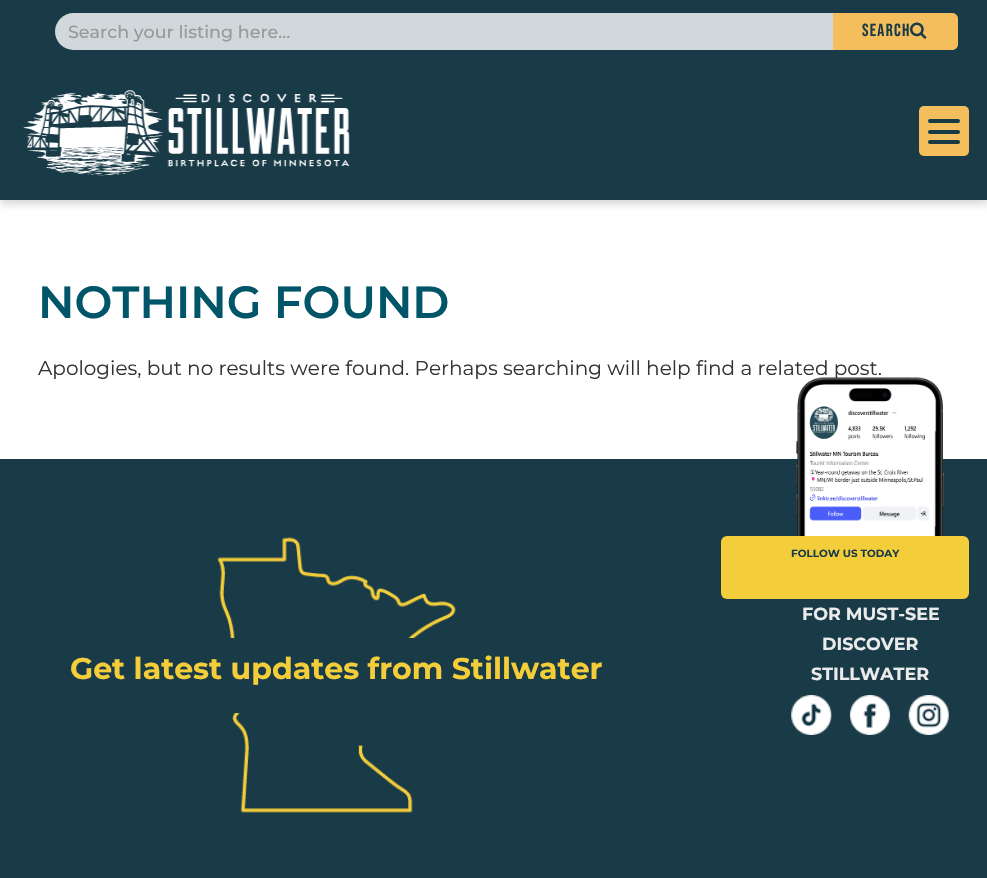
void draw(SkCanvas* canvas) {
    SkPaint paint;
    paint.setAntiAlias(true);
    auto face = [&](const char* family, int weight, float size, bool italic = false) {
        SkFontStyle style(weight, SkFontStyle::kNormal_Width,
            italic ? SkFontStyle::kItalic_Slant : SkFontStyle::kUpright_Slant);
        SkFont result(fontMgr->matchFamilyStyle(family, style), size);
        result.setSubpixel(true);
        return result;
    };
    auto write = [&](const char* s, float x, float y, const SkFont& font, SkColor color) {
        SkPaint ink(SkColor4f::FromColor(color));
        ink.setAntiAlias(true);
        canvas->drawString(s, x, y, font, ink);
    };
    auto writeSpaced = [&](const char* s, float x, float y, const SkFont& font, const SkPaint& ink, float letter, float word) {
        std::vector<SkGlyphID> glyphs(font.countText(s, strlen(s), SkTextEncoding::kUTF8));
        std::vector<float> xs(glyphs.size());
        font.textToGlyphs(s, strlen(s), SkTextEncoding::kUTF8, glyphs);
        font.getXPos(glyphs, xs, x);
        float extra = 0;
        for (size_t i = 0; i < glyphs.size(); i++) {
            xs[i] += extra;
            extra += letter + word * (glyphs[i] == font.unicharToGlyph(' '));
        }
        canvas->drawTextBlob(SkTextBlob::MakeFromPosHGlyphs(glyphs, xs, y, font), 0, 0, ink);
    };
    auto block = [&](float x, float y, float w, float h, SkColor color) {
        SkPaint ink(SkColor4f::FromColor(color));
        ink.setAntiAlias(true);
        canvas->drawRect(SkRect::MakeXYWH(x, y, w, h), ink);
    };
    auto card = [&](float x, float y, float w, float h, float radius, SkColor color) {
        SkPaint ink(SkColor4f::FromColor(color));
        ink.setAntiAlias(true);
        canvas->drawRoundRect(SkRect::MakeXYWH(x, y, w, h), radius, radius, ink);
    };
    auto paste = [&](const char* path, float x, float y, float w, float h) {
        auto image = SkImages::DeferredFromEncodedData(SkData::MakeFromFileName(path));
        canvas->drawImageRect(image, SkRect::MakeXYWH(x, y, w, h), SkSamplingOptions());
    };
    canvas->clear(SK_ColorWHITE);
    paint.setColor(SkColorSetARGB(41, 0, 0, 0));
    paint.setMaskFilter(SkMaskFilter::MakeBlur(kNormal_SkBlurStyle, 4));
    canvas->drawRect(SkRect::MakeXYWH(0, 141, 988, 63), paint);
    paint.setMaskFilter(nullptr);
    block(0, 0, 987, 200, SkColorSetRGB(25, 59, 72));
    card(55, 13, 903, 37, 18.5f, SkColorSetARGB(204, 255, 255, 255));
    auto kFont1 = face("Montserrat", 500, 17.5f);
    write("Search your listing here...", 68, 38, kFont1, SkColorSetRGB(153, 153, 153));
    paint.setColor(SkColorSetRGB(243, 190, 91));
    canvas->drawPath(SkPathBuilder().moveTo(833, 13).lineTo(952, 13).cubicTo(955.5f, 13, 958, 15.5f, 958, 19).lineTo(958, 44).cubicTo(958, 47.5f, 955.5f, 50, 952, 50).lineTo(833, 50).close().detach(), paint);
    auto kFont2 = face("Bebas Neue", 400, 17.5f);
    paint.setColor(SkColorSetRGB(25, 59, 72));
    writeSpaced("SEARCH", 862, 36, kFont2, paint, 1.25f, 0);
    paste("pic1.png", 910, 22, 17, 17);
    paste("pic2.png", 23, 90, 327, 86);
    card(919, 106, 50, 50, 5, SkColorSetRGB(243, 190, 91));
    card(928, 119, 32, 4, 2, SkColorSetRGB(25, 59, 72));
    card(928, 130, 32, 4, 2, SkColorSetRGB(25, 59, 72));
    card(928, 140, 32, 4, 2, SkColorSetRGB(25, 59, 72));
    auto kFont3 = face("Montserrat", 600, 45);
    write("NOTHING FOUND", 38, 318, kFont3, SkColorSetRGB(0, 85, 104));
    auto kFont4 = face("Montserrat", 400, 20);
    write("Apologies, but no results were found. Perhaps searching will help find a related post.", 38, 375, kFont4, SkColorSetRGB(51, 51, 51));
    block(0, 459, 987, 419, SkColorSetRGB(25, 59, 72));
    paste("pic3.png", 217, 537, 239, 276);
    block(230, 638, 185, 75, SkColorSetRGB(25, 59, 72));
    auto kFont5 = face("Montserrat", 700, 30);
    write("Get latest updates from Stillwater", 70, 679, kFont5, SkColorSetRGB(244, 206, 58));
    paste("pic4.png", 796, 377, 148, 159);
    card(721, 536, 248, 63, 6, SkColorSetRGB(244, 206, 58));
    auto kFont6 = face("Montserrat", 700, 10.4f);
    write("FOLLOW US TODAY", 791, 557, kFont6, SkColorSetRGB(25, 59, 72));
    auto kFont7 = face("Montserrat", 700, 17.5f);
    write("FOR MUST-SEE", 802, 620, kFont7, SkColorSetRGB(235, 235, 235));
    write("DISCOVER", 822, 650, kFont7, SkColorSetRGB(235, 235, 235));
    write("STILLWATER", 811, 680, kFont7, SkColorSetRGB(235, 235, 235));
    paste("pic5.png", 791, 695, 41, 40);
    paste("pic6.png", 850, 695, 40, 40);
    paste("pic7.png", 908, 695, 41, 40);
}
